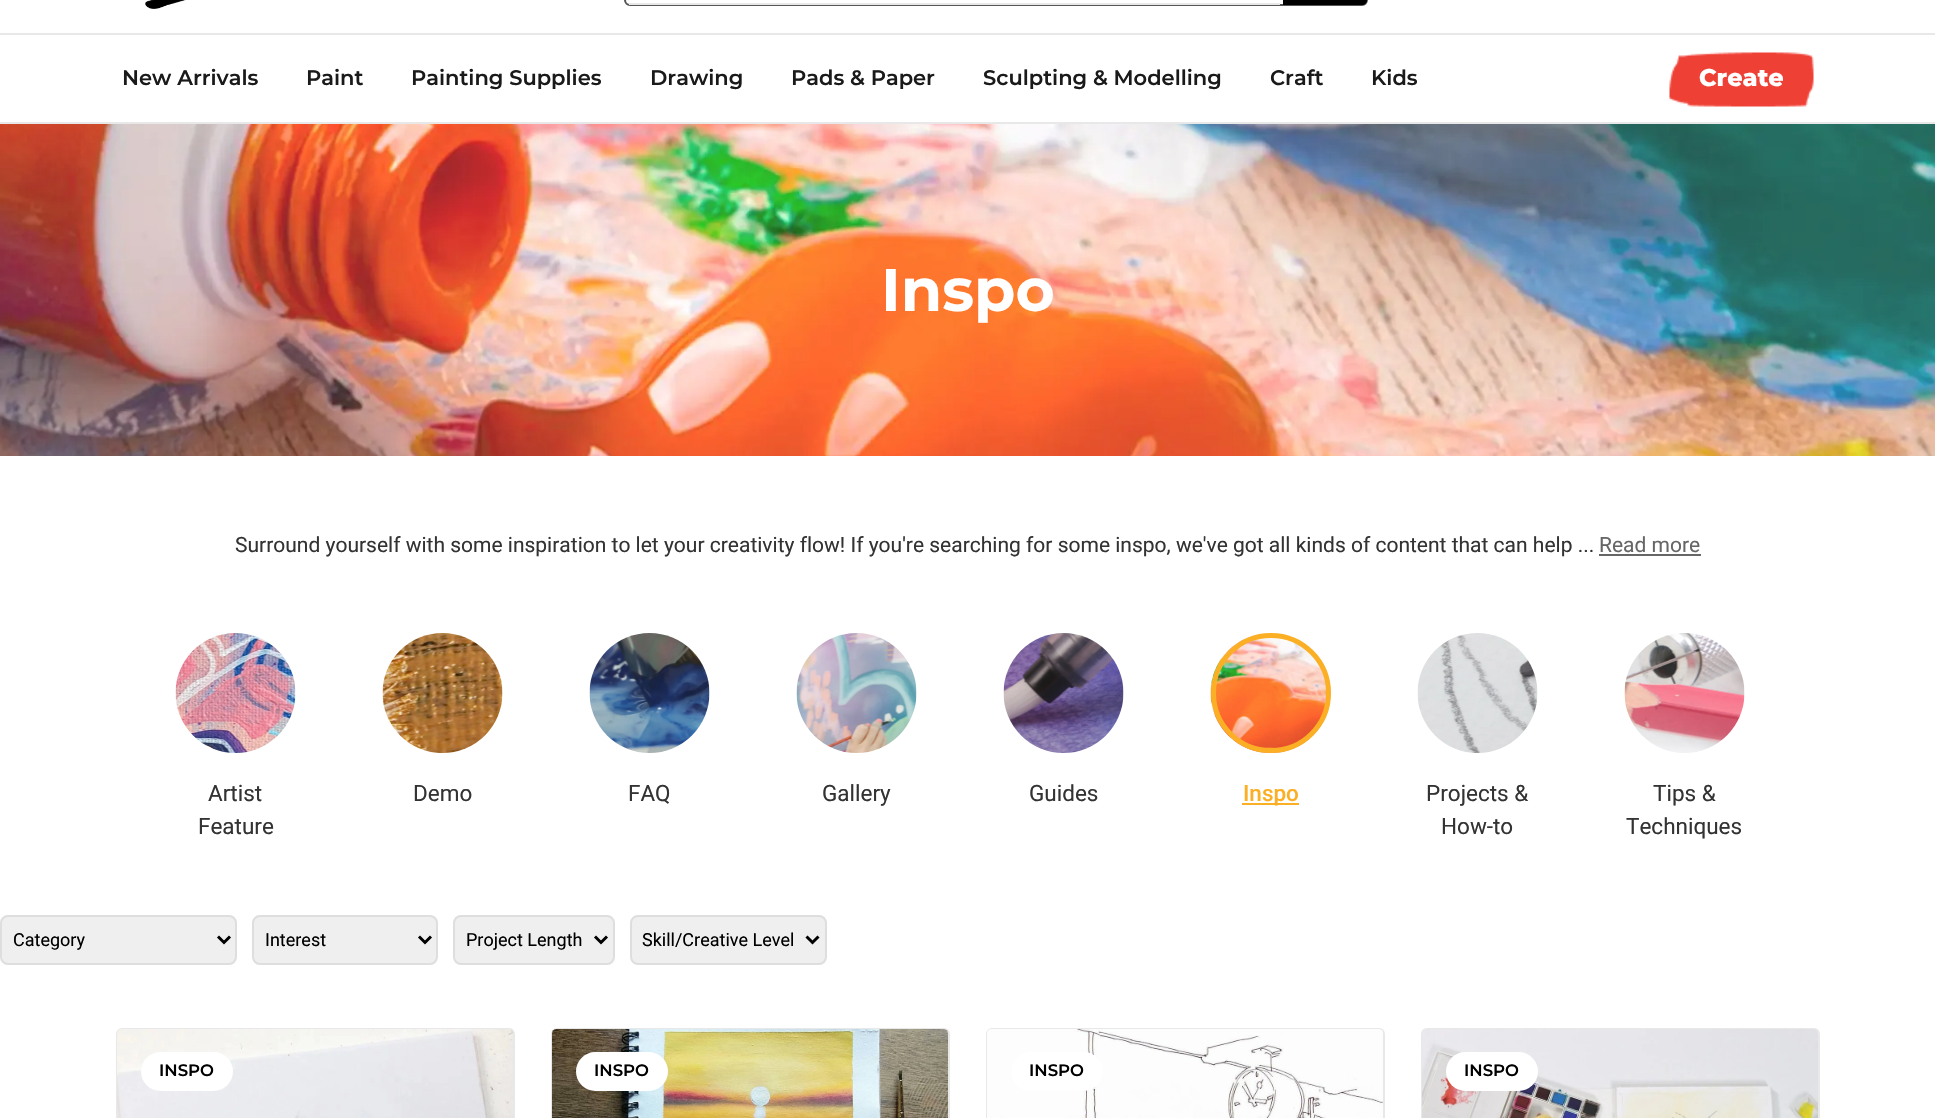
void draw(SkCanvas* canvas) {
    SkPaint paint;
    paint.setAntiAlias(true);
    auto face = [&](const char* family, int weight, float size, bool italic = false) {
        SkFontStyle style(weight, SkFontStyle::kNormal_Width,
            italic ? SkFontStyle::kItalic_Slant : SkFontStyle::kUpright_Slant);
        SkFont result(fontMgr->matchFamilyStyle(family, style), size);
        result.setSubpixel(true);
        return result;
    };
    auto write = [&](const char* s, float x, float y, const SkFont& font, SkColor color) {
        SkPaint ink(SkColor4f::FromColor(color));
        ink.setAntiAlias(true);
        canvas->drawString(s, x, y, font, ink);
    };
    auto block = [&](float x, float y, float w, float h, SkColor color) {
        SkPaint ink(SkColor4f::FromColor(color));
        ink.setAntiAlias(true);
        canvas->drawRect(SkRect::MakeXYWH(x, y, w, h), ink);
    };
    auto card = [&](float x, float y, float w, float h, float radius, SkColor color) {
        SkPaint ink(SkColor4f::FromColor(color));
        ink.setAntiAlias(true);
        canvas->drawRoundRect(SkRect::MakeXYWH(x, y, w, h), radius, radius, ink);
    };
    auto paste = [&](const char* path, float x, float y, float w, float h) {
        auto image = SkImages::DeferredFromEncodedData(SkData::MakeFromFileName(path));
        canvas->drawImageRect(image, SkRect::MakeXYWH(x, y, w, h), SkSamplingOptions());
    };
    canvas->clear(SK_ColorWHITE);
    paste("pic1.png", 145, 0, 41, 9);
    paint.setStyle(SkPaint::kStroke_Style);
    paint.setStrokeWidth(2);
    paint.setColor(SkColorSetRGB(85, 85, 85));
    canvas->drawRoundRect(SkRect::MakeXYWH(625, -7, 742, 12), 5, 5, paint);
    block(629, 3, 651, 2, SkColorSetRGB(232, 232, 232));
    paint.setStyle(SkPaint::kFill_Style);
    paint.setColor(SK_ColorBLACK);
    canvas->drawPath(SkPathBuilder().moveTo(1283, -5).lineTo(1362, -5).cubicTo(1365, -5, 1367, -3, 1367, 0).cubicTo(1367, 3, 1365, 5, 1362, 5).lineTo(1283, 5).close().detach(), paint);
    block(0, 33, 1935, 2, SkColorSetRGB(232, 232, 232));
    auto kFont1 = face("Montserrat", 600, 21);
    write("New Arrivals", 122, 85, kFont1, SkColorSetRGB(26, 26, 26));
    write("Paint", 306, 85, kFont1, SkColorSetRGB(26, 26, 26));
    write("Painting Supplies", 411, 85, kFont1, SkColorSetRGB(26, 26, 26));
    write("Drawing", 650, 85, kFont1, SkColorSetRGB(26, 26, 26));
    write("Pads & Paper", 791, 85, kFont1, SkColorSetRGB(26, 26, 26));
    write("Sculpting & Modelling", 983, 85, kFont1, SkColorSetRGB(26, 26, 26));
    write("Craft", 1270, 85, kFont1, SkColorSetRGB(26, 26, 26));
    write("Kids", 1371, 85, kFont1, SkColorSetRGB(26, 26, 26));
    paste("pic2.png", 1669, 52, 145, 55);
    auto kFont2 = face("Montserrat", 800, 24);
    write("Create", 1699, 86, kFont2, SK_ColorWHITE);
    block(0, 122, 1935, 2, SkColorSetRGB(232, 232, 232));
    paste("pic3.png", 0, 124, 1935, 332);
    auto kFont3 = face("Montserrat", 700, 60);
    write("Inspo", 881, 311, kFont3, SK_ColorWHITE);
    auto kFont4 = face("Roboto", 400, 21);
    write("Surround yourself with some inspiration to let your creativity flow! If you're searching for some inspo, we've got all kinds of content that can help ...", 235, 552, kFont4, SkColorSetRGB(51, 51, 51));
    write("Read more", 1599, 552, kFont4, SkColorSetRGB(102, 102, 102));
    block(1599, 554, 102, 2, SkColorSetRGB(102, 102, 102));
    paste("pic4.png", 175, 633, 121, 120);
    auto kFont5 = face("Roboto", 400, 22.5f);
    write("Artist", 208, 801, kFont5, SkColorSetRGB(51, 51, 51));
    write("Feature", 198, 834, kFont5, SkColorSetRGB(51, 51, 51));
    paste("pic5.png", 382, 633, 121, 120);
    write("Demo", 413, 801, kFont5, SkColorSetRGB(51, 51, 51));
    paste("pic6.png", 589, 633, 121, 120);
    write("FAQ", 628, 801, kFont5, SkColorSetRGB(51, 51, 51));
    paste("pic7.png", 796, 633, 121, 120);
    write("Gallery", 822, 801, kFont5, SkColorSetRGB(51, 51, 51));
    paste("pic8.png", 1003, 633, 121, 120);
    write("Guides", 1029, 801, kFont5, SkColorSetRGB(51, 51, 51));
    paste("pic9.png", 1210, 633, 121, 120);
    paint.setStyle(SkPaint::kStroke_Style);
    paint.setStrokeWidth(5);
    paint.setColor(SkColorSetRGB(251, 175, 37));
    canvas->drawCircle(1271, 693, 57.5f, paint);
    block(1242, 803, 57, 2, SkColorSetRGB(251, 175, 37));
    auto kFont6 = face("Roboto", 500, 22.5f);
    write("Inspo", 1243, 801, kFont6, SkColorSetRGB(251, 175, 37));
    paste("pic10.png", 1417, 633, 121, 120);
    write("Projects &", 1426, 801, kFont5, SkColorSetRGB(51, 51, 51));
    write("How-to", 1441, 834, kFont5, SkColorSetRGB(51, 51, 51));
    paste("pic11.png", 1624, 633, 121, 120);
    write("Tips &", 1653, 801, kFont5, SkColorSetRGB(51, 51, 51));
    write("Techniques", 1626, 834, kFont5, SkColorSetRGB(51, 51, 51));
    paint.setStyle(SkPaint::kFill_Style);
    paint.setColor(SkColorSetRGB(239, 239, 239));
    canvas->drawRoundRect(SkRect::MakeXYWH(1, 916, 235, 48), 7, 7, paint);
    paint.setStyle(SkPaint::kStroke_Style);
    paint.setStrokeWidth(2);
    paint.setColor(SkColorSetRGB(222, 222, 222));
    canvas->drawRoundRect(SkRect::MakeXYWH(1, 916, 235, 48), 7, 7, paint);
    paint.setStrokeWidth(3);
    paint.setColor(SK_ColorBLACK);
    canvas->drawPath(SkPathBuilder().moveTo(218, 936.5f).lineTo(224, 942.5f).lineTo(230, 936.5f).detach(), paint);
    auto kFont7 = face("Roboto", 400, 18);
    write("Category", 13, 946, kFont7, SK_ColorBLACK);
    paint.setStyle(SkPaint::kFill_Style);
    paint.setColor(SkColorSetRGB(239, 239, 239));
    canvas->drawRoundRect(SkRect::MakeXYWH(253, 916, 184, 48), 7, 7, paint);
    paint.setStyle(SkPaint::kStroke_Style);
    paint.setStrokeWidth(2);
    paint.setColor(SkColorSetRGB(222, 222, 222));
    canvas->drawRoundRect(SkRect::MakeXYWH(253, 916, 184, 48), 7, 7, paint);
    paint.setStrokeWidth(3);
    paint.setColor(SK_ColorBLACK);
    canvas->drawPath(SkPathBuilder().moveTo(419, 936.5f).lineTo(425, 942.5f).lineTo(431, 936.5f).detach(), paint);
    write("Interest", 265, 946, kFont7, SK_ColorBLACK);
    paint.setStyle(SkPaint::kFill_Style);
    paint.setColor(SkColorSetRGB(239, 239, 239));
    canvas->drawRoundRect(SkRect::MakeXYWH(454, 916, 160, 48), 7, 7, paint);
    paint.setStyle(SkPaint::kStroke_Style);
    paint.setStrokeWidth(2);
    paint.setColor(SkColorSetRGB(222, 222, 222));
    canvas->drawRoundRect(SkRect::MakeXYWH(454, 916, 160, 48), 7, 7, paint);
    paint.setStrokeWidth(3);
    paint.setColor(SK_ColorBLACK);
    canvas->drawPath(SkPathBuilder().moveTo(595, 936.5f).lineTo(601, 942.5f).lineTo(607, 936.5f).detach(), paint);
    write("Project Length", 466, 946, kFont7, SK_ColorBLACK);
    paint.setStyle(SkPaint::kFill_Style);
    paint.setColor(SkColorSetRGB(239, 239, 239));
    canvas->drawRoundRect(SkRect::MakeXYWH(631, 916, 195, 48), 7, 7, paint);
    paint.setStyle(SkPaint::kStroke_Style);
    paint.setStrokeWidth(2);
    paint.setColor(SkColorSetRGB(222, 222, 222));
    canvas->drawRoundRect(SkRect::MakeXYWH(631, 916, 195, 48), 7, 7, paint);
    paint.setStrokeWidth(3);
    paint.setColor(SK_ColorBLACK);
    canvas->drawPath(SkPathBuilder().moveTo(806.5f, 936.5f).lineTo(812.5f, 942.5f).lineTo(818.5f, 936.5f).detach(), paint);
    write("Skill/Creative Level", 642, 946, kFont7, SK_ColorBLACK);
    paint.setStrokeWidth(2);
    paint.setColor(SkColorSetRGB(232, 232, 232));
    canvas->drawRoundRect(SkRect::MakeXYWH(117, 1029, 397, 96), 5, 5, paint);
    paste("pic12.png", 117, 1029, 396, 89);
    card(141, 1052, 92, 39, 19.5f, SK_ColorWHITE);
    auto kFont8 = face("Montserrat", 600, 16.5f);
    write("INSPO", 159, 1076, kFont8, SK_ColorBLACK);
    canvas->drawRoundRect(SkRect::MakeXYWH(552, 1029, 397, 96), 5, 5, paint);
    paste("pic13.png", 552, 1029, 396, 89);
    card(576, 1052, 92, 39, 19.5f, SK_ColorWHITE);
    write("INSPO", 594, 1076, kFont8, SK_ColorBLACK);
    canvas->drawRoundRect(SkRect::MakeXYWH(987, 1029, 397, 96), 5, 5, paint);
    paste("pic14.png", 987, 1029, 396, 89);
    card(1011, 1052, 92, 39, 19.5f, SK_ColorWHITE);
    write("INSPO", 1029, 1076, kFont8, SK_ColorBLACK);
    canvas->drawRoundRect(SkRect::MakeXYWH(1422, 1029, 397, 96), 5, 5, paint);
    paste("pic15.png", 1422, 1029, 396, 89);
    card(1446, 1052, 92, 39, 19.5f, SK_ColorWHITE);
    write("INSPO", 1464, 1076, kFont8, SK_ColorBLACK);
}
